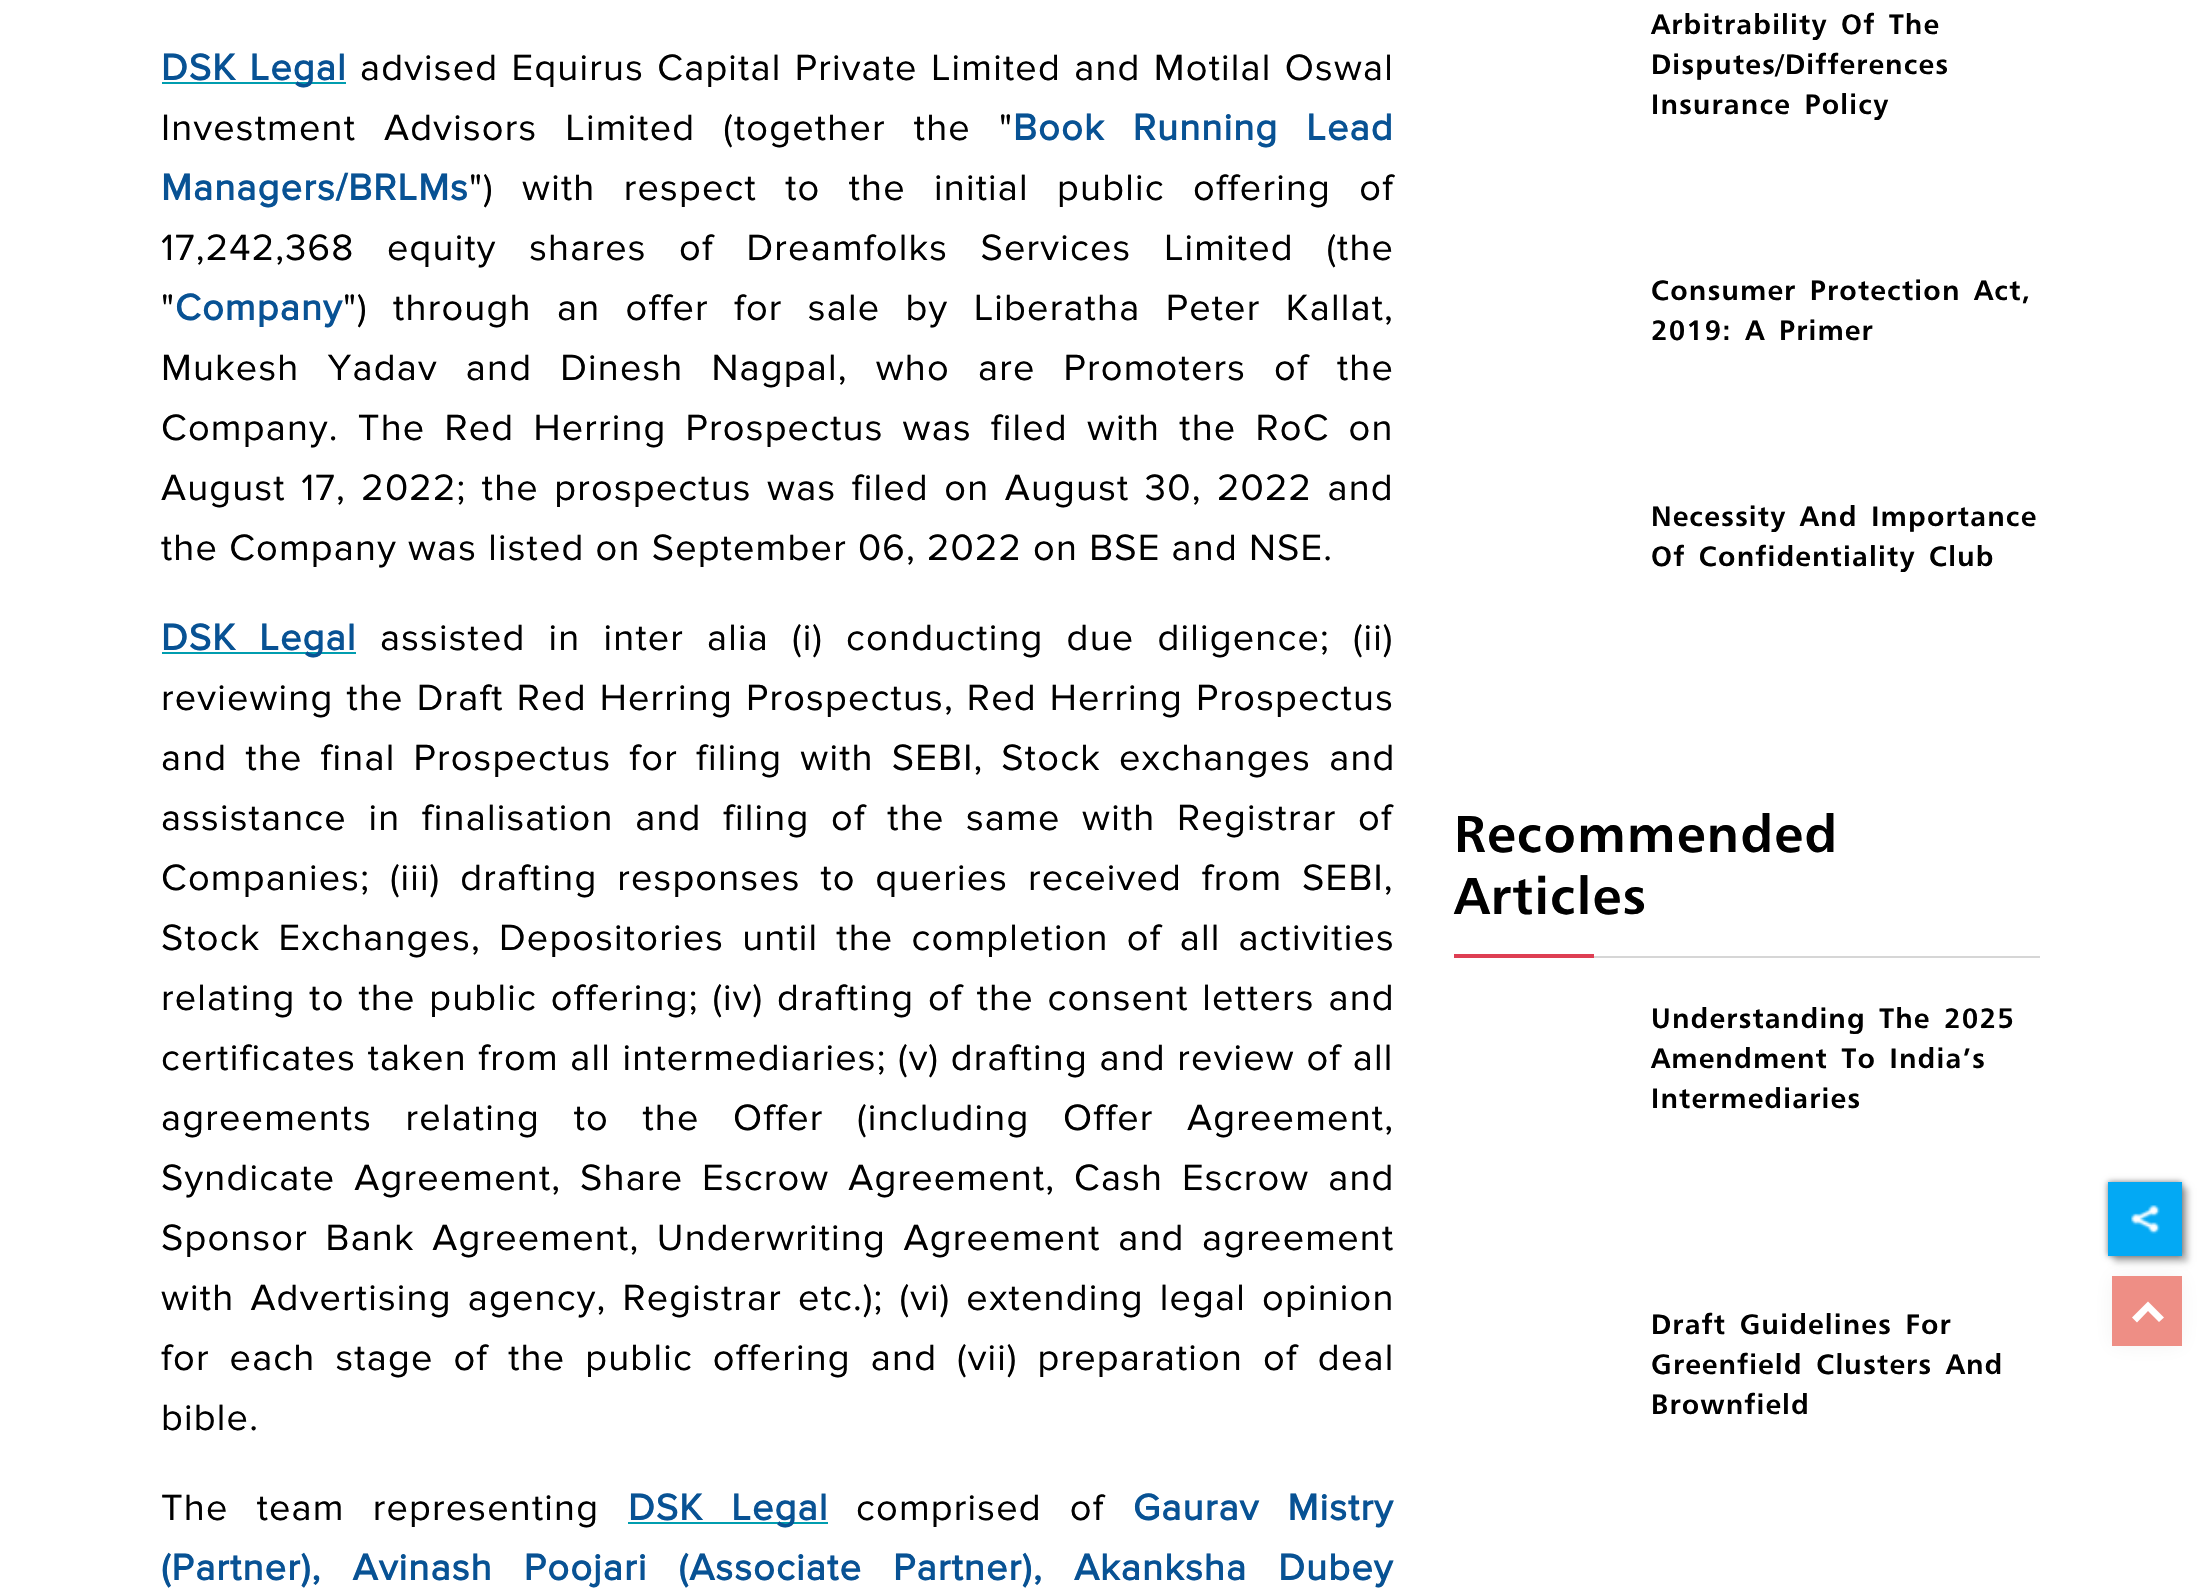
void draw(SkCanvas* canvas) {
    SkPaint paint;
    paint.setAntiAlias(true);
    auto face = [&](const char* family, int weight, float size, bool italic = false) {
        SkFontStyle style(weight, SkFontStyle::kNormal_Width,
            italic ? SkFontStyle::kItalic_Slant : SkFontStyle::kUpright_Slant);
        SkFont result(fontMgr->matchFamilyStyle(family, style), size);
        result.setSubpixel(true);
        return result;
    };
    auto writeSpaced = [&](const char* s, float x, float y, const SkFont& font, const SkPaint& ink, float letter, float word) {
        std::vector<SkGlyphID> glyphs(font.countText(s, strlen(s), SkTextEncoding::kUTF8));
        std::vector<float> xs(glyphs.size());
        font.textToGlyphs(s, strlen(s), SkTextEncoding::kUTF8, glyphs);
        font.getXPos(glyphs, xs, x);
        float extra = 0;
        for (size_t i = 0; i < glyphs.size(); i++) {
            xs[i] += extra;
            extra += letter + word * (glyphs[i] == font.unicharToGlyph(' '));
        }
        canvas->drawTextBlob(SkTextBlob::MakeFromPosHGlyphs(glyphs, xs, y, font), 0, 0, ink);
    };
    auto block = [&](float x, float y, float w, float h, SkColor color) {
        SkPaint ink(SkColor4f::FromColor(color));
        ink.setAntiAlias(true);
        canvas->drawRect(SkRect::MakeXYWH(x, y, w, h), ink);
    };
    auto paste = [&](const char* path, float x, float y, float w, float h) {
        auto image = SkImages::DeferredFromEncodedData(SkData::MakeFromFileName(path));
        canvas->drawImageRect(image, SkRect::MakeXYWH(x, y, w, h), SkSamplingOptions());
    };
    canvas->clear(SK_ColorWHITE);
    block(162, 82, 184, 2, SkColorSetRGB(0, 157, 175));
    auto kFont1 = face("Proxima Nova", 700, 38);
    paint.setColor(SkColorSetRGB(8, 82, 148));
    writeSpaced("DSK Legal", 161, 80, kFont1, paint, 1.2f, 2.25f);
    auto kFont2 = face("Proxima Nova", 400, 38);
    paint.setColor(SK_ColorBLACK);
    writeSpaced("advised Equirus Capital Private Limited and Motilal Oswal", 360, 80, kFont2, paint, 1.2f, 2.25f);
    writeSpaced("Investment Advisors Limited (together the \"", 161, 140, kFont2, paint, 1.2f, 17);
    paint.setColor(SkColorSetRGB(8, 82, 148));
    writeSpaced("Book Running Lead", 1013, 140, kFont1, paint, 1.2f, 17);
    writeSpaced("Managers/BRLMs", 161, 200, kFont1, paint, 1.2f, 0);
    paint.setColor(SK_ColorBLACK);
    writeSpaced("\") with respect to the initial public offering of", 469, 200, kFont2, paint, 1.2f, 17.25f);
    writeSpaced("17,242,368 equity shares of Dreamfolks Services Limited (the", 161, 260, kFont2, paint, 1.2f, 21.5f);
    writeSpaced("\"", 161, 320, kFont2, paint, 1.2f, 0);
    paint.setColor(SkColorSetRGB(8, 82, 148));
    writeSpaced("Company", 175, 320, kFont1, paint, 1.2f, 0);
    paint.setColor(SK_ColorBLACK);
    writeSpaced("\") through an offer for sale by Liberatha Peter Kallat,", 343, 320, kFont2, paint, 1.2f, 14.25f);
    writeSpaced("Mukesh Yadav and Dinesh Nagpal, who are Promoters of the", 161, 380, kFont2, paint, 1.2f, 17);
    writeSpaced("Company. The Red Herring Prospectus was filed with the RoC on", 161, 440, kFont2, paint, 1.2f, 8);
    writeSpaced("August 17, 2022; the prospectus was filed on August 30, 2022 and", 161, 500, kFont2, paint, 1.2f, 4.4f);
    writeSpaced("the Company was listed on September 06, 2022 on BSE and NSE.", 161, 560, kFont2, paint, 1.2f, 0);
    block(162, 652, 194, 2, SkColorSetRGB(0, 157, 175));
    paint.setColor(SkColorSetRGB(8, 82, 148));
    writeSpaced("DSK Legal", 161, 650, kFont1, paint, 1.2f, 12);
    paint.setColor(SK_ColorBLACK);
    writeSpaced("assisted in inter alia (i) conducting due diligence; (ii)", 380, 650, kFont2, paint, 1.2f, 12);
    writeSpaced("reviewing the Draft Red Herring Prospectus, Red Herring Prospectus", 161, 710, kFont2, paint, 1.2f, 2);
    writeSpaced("and the final Prospectus for filing with SEBI, Stock exchanges and", 161, 770, kFont2, paint, 1.2f, 7);
    writeSpaced("assistance in finalisation and filing of the same with Registrar of", 161, 830, kFont2, paint, 1.2f, 10.5f);
    writeSpaced("Companies; (iii) drafting responses to queries received from SEBI,", 161, 890, kFont2, paint, 1.2f, 8.75f);
    writeSpaced("Stock Exchanges, Depositories until the completion of all activities", 161, 950, kFont2, paint, 1.2f, 7);
    writeSpaced("relating to the public offering; (iv) drafting of the consent letters and", 161, 1010, kFont2, paint, 1.2f, 2.75f);
    writeSpaced("certificates taken from all intermediaries; (v) drafting and review of all", 161, 1070, kFont2, paint, 1.2f, 0.5f);
    writeSpaced("agreements relating to the Offer (including Offer Agreement,", 161, 1130, kFont2, paint, 1.2f, 22.5f);
    writeSpaced("Syndicate Agreement, Share Escrow Agreement, Cash Escrow and", 161, 1190, kFont2, paint, 1.2f, 7.75f);
    writeSpaced("Sponsor Bank Agreement, Underwriting Agreement and agreement", 161, 1250, kFont2, paint, 1.2f, 6.5f);
    writeSpaced("with Advertising agency, Registrar etc.); (vi) extending legal opinion", 161, 1310, kFont2, paint, 1.2f, 5);
    writeSpaced("for each stage of the public offering and (vii) preparation of deal", 161, 1370, kFont2, paint, 1.2f, 8.9f);
    writeSpaced("bible.", 161, 1430, kFont2, paint, 1.2f, 0);
    writeSpaced("The team representing", 161, 1520, kFont2, paint, 1.2f, 17);
    block(628, 1522, 200, 2, SkColorSetRGB(0, 157, 175));
    paint.setColor(SkColorSetRGB(8, 82, 148));
    writeSpaced("DSK Legal", 628, 1520, kFont1, paint, 1.2f, 17);
    paint.setColor(SK_ColorBLACK);
    writeSpaced("comprised of", 856, 1520, kFont2, paint, 1.2f, 17);
    paint.setColor(SkColorSetRGB(8, 82, 148));
    writeSpaced("Gaurav Mistry", 1133, 1520, kFont1, paint, 1.2f, 17);
    writeSpaced("(Partner), Avinash Poojari (Associate Partner), Akanksha Dubey", 161, 1580, kFont1, paint, 1.2f, 20);
    auto kFont3 = face("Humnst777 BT", 700, 28);
    paint.setColor(SK_ColorBLACK);
    writeSpaced("Arbitrability Of The", 1651, 34, kFont3, paint, 1.2f, 4);
    writeSpaced("Disputes/Differences", 1651, 74, kFont3, paint, 1.2f, 0);
    writeSpaced("Insurance Policy", 1651, 114, kFont3, paint, 1.2f, 4);
    writeSpaced("Consumer Protection Act,", 1651, 300, kFont3, paint, 1.2f, 4);
    writeSpaced("2019: A Primer", 1651, 340, kFont3, paint, 1.2f, 4);
    writeSpaced("Necessity And Importance", 1651, 526, kFont3, paint, 1.2f, 4);
    writeSpaced("Of Confidentiality Club", 1651, 566, kFont3, paint, 1.2f, 4);
    block(1594, 956, 446, 2, SkColorSetRGB(214, 214, 214));
    auto kFont4 = face("Humnst777 BT", 700, 52);
    writeSpaced("Recommended", 1454, 852, kFont4, paint, 1.2f, 0);
    writeSpaced("Articles", 1454, 914, kFont4, paint, 1.2f, 0);
    block(1454, 954, 140, 4, SkColorSetRGB(222, 62, 83));
    writeSpaced("Understanding The 2025", 1651, 1028, kFont3, paint, 1.2f, 4);
    writeSpaced("Amendment To India’s", 1651, 1068, kFont3, paint, 1.2f, 4);
    writeSpaced("Intermediaries", 1651, 1108, kFont3, paint, 1.2f, 0);
    writeSpaced("Draft Guidelines For", 1651, 1334, kFont3, paint, 1.2f, 4);
    writeSpaced("Greenfield Clusters And", 1651, 1374, kFont3, paint, 1.2f, 4);
    writeSpaced("Brownfield", 1651, 1414, kFont3, paint, 1.2f, 0);
    paint.setColor(SkColorSetARGB(64, 0, 0, 0));
    paint.setMaskFilter(SkMaskFilter::MakeBlur(kNormal_SkBlurStyle, 3));
    canvas->drawRect(SkRect::MakeXYWH(2114, 1188, 74, 74), paint);
    paint.setMaskFilter(nullptr);
    paint.setColor(SkColorSetARGB(128, 0, 0, 0));
    paint.setMaskFilter(SkMaskFilter::MakeBlur(kNormal_SkBlurStyle, 3));
    canvas->drawRect(SkRect::MakeXYWH(2108, 1182, 74, 74), paint);
    paint.setMaskFilter(nullptr);
    paint.setColor(SkColorSetARGB(13, 26, 26, 26));
    paint.setMaskFilter(SkMaskFilter::MakeBlur(kNormal_SkBlurStyle, 10));
    canvas->drawRect(SkRect::MakeXYWH(2112, 1276, 70, 70), paint);
    paint.setMaskFilter(nullptr);
    block(2108, 1182, 74, 74, SkColorSetRGB(3, 169, 244));
    paste("pic1.png", 2131, 1205, 29, 29);
    block(2112, 1276, 70, 70, SkColorSetRGB(238, 142, 133));
    paint.setColor(SK_ColorWHITE);
    canvas->drawPath(SkPathBuilder().moveTo(2148, 1301.5f).lineTo(2164, 1317.5f).lineTo(2159, 1322).lineTo(2148, 1311).lineTo(2137, 1322.5f).lineTo(2132, 1317.5f).close().detach(), paint);
}
